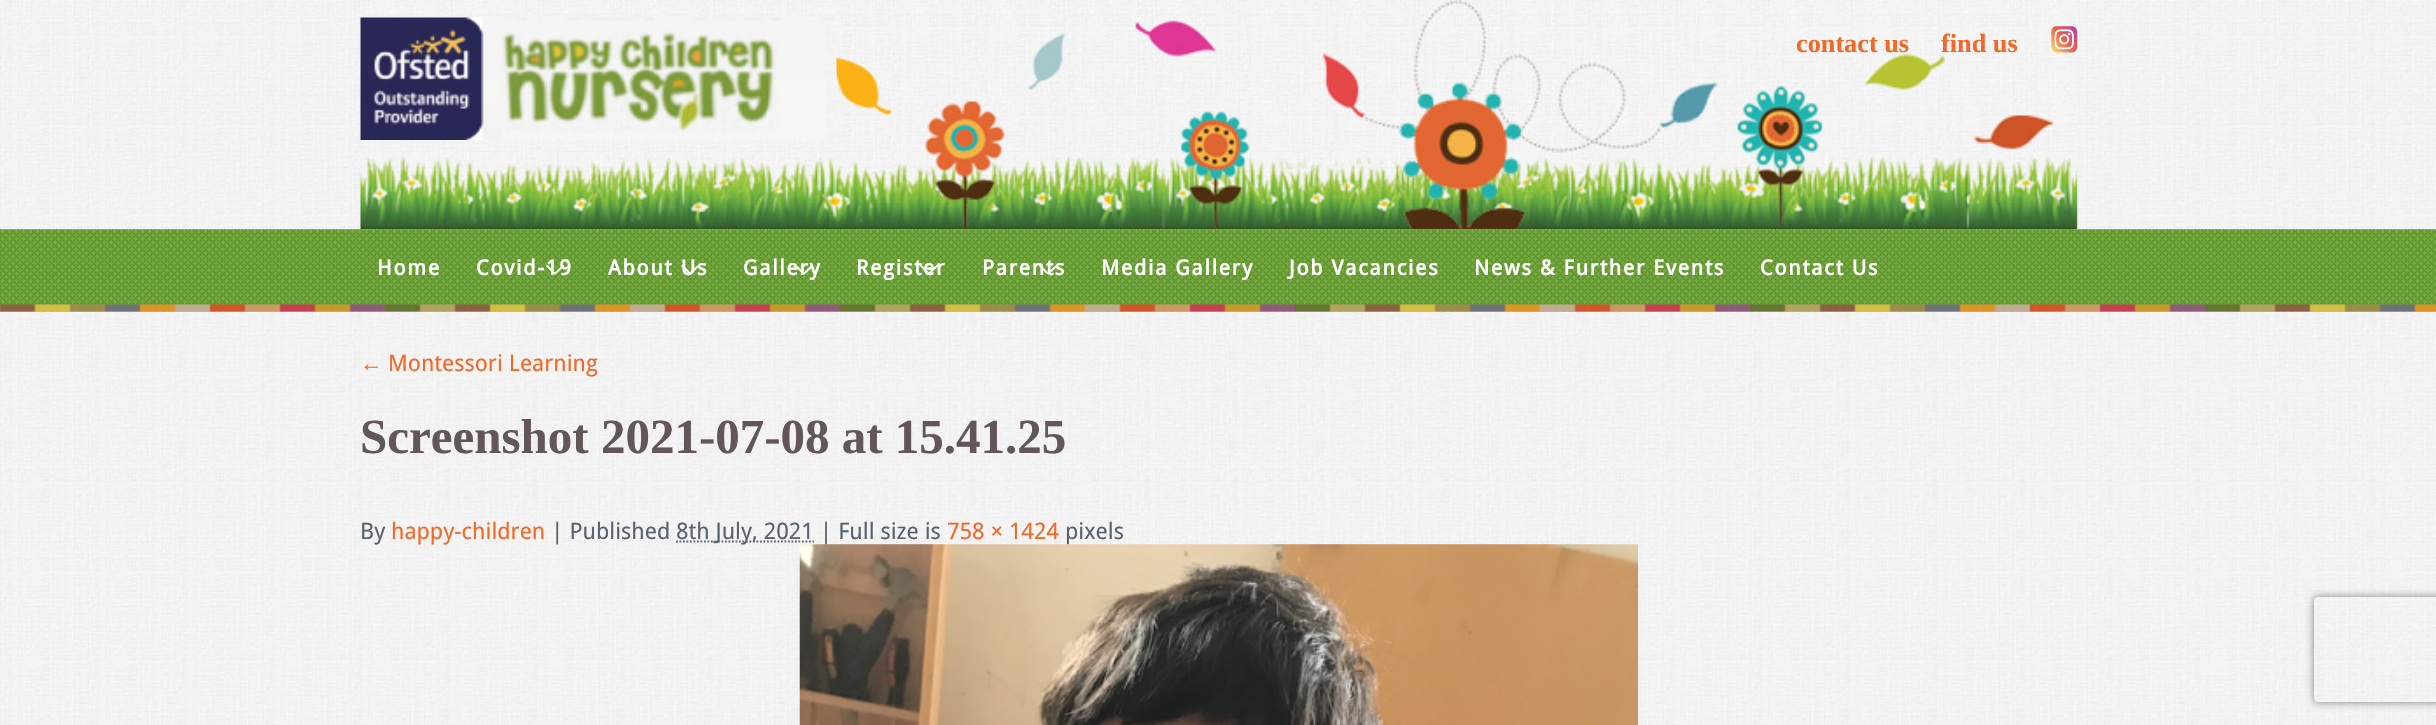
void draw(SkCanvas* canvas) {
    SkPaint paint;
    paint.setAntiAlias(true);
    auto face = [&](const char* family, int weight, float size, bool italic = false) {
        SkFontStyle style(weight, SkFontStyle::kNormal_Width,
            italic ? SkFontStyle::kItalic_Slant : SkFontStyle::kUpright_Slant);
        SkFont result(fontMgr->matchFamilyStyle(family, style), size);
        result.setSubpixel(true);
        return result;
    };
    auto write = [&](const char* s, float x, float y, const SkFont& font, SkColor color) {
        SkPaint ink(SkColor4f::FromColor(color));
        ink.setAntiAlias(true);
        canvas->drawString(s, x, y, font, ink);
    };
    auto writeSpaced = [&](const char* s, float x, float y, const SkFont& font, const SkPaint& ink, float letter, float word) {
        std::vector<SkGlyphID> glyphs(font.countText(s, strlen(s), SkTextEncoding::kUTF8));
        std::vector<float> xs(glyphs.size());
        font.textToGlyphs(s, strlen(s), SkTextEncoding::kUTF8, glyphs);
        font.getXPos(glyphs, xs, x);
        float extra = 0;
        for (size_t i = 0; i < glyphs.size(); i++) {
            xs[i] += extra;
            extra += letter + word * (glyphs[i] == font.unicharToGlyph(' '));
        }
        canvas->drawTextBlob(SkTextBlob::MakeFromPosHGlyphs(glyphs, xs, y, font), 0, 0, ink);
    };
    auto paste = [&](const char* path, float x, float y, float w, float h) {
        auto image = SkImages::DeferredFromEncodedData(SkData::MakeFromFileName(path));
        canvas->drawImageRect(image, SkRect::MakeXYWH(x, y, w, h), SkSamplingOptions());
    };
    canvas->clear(SK_ColorWHITE);
    paste("pic1.png", 0, 0, 2436, 725);
    paste("pic2.png", 360, 0, 1718, 230);
    paste("pic3.png", 360, 17, 477, 123);
    auto kFont1 = face("Liberation Serif", 700, 26.25f);
    write("contact us", 1796, 52, kFont1, SkColorSetRGB(241, 104, 39));
    write("find us", 1941, 52, kFont1, SkColorSetRGB(241, 104, 39));
    paste("pic4.png", 2051, 26, 27, 27);
    paste("pic5.png", 0, 229, 2436, 83);
    auto kFont2 = face("Droid Sans", 700, 21);
    paint.setColor(SK_ColorWHITE);
    writeSpaced("Home", 377, 275, kFont2, paint, 1.75f, 0);
    writeSpaced("Covid-19", 476, 275, kFont2, paint, 1.75f, 0);
    canvas->drawPath(SkPathBuilder().moveTo(547.5f, 265).lineTo(555.5f, 273).lineTo(554.5f, 274.5f).cubicTo(553, 273.5f, 546, 266.5f, 546, 265.5f).cubicTo(546, 265, 547, 264.5f, 547.5f, 265).close().detach(), paint);
    canvas->drawPath(SkPathBuilder().moveTo(554.5f, 273).lineTo(563, 264.5f).lineTo(564.5f, 266).lineTo(555.5f, 274.5f).close().detach(), paint);
    writeSpaced("About Us", 608, 275, kFont2, paint, 1.75f, 0);
    canvas->drawPath(SkPathBuilder().moveTo(683, 265).lineTo(691, 273).lineTo(689.5f, 274.5f).cubicTo(688.5f, 273.5f, 681, 266.5f, 681.5f, 265.5f).cubicTo(681.5f, 265, 682.5f, 264.5f, 683, 265).close().detach(), paint);
    canvas->drawPath(SkPathBuilder().moveTo(689.5f, 273).lineTo(698.5f, 264.5f).lineTo(699.5f, 266).lineTo(691, 274.5f).close().detach(), paint);
    writeSpaced("Gallery", 743, 275, kFont2, paint, 1.75f, 0);
    canvas->drawPath(SkPathBuilder().moveTo(796.5f, 265).lineTo(804.5f, 273).lineTo(803.5f, 274.5f).cubicTo(802, 273.5f, 795, 266.5f, 795, 265.5f).cubicTo(795, 265, 796, 264.5f, 796.5f, 265).close().detach(), paint);
    canvas->drawPath(SkPathBuilder().moveTo(803.5f, 273).lineTo(812, 264.5f).lineTo(813.5f, 266).lineTo(804.5f, 274.5f).close().detach(), paint);
    writeSpaced("Register", 856, 275, kFont2, paint, 1.75f, 0);
    canvas->drawPath(SkPathBuilder().moveTo(921.5f, 265).lineTo(929.5f, 273).lineTo(928.5f, 274.5f).cubicTo(927.5f, 273.5f, 920, 266.5f, 920, 265.5f).cubicTo(920.5f, 265, 921, 264.5f, 921.5f, 265).close().detach(), paint);
    canvas->drawPath(SkPathBuilder().moveTo(928.5f, 273).lineTo(937, 264.5f).lineTo(938.5f, 266).lineTo(929.5f, 274.5f).close().detach(), paint);
    writeSpaced("Parents", 982, 275, kFont2, paint, 1.75f, 0);
    canvas->drawPath(SkPathBuilder().moveTo(1040.5f, 265).lineTo(1048.5f, 273).lineTo(1047.5f, 274.5f).cubicTo(1046.5f, 273.5f, 1039, 266.5f, 1039, 265.5f).cubicTo(1039.5f, 265, 1040, 264.5f, 1040.5f, 265).close().detach(), paint);
    canvas->drawPath(SkPathBuilder().moveTo(1047.5f, 273).lineTo(1056.5f, 264.5f).lineTo(1057.5f, 266).lineTo(1049, 274.5f).close().detach(), paint);
    writeSpaced("Media Gallery", 1101, 275, kFont2, paint, 1.75f, 0);
    writeSpaced("Job Vacancies", 1289, 275, kFont2, paint, 1.75f, 0);
    writeSpaced("News & Further Events", 1474, 275, kFont2, paint, 1.75f, 0);
    writeSpaced("Contact Us", 1760, 275, kFont2, paint, 1.75f, 0);
    paste("pic6.png", 0, 304, 2436, 8);
    auto kFont3 = face("Liberation Serif", 400, 22.75f);
    write("←", 360, 371, kFont3, SkColorSetRGB(241, 104, 39));
    auto kFont4 = face("Droid Sans", 400, 22.75f);
    write("Montessori Learning", 388, 371, kFont4, SkColorSetRGB(241, 104, 39));
    auto kFont5 = face("Liberation Serif", 700, 49);
    write("Screenshot 2021-07-08 at 15.41.25", 360, 453, kFont5, SkColorSetRGB(98, 86, 86));
    write("By", 360, 539, kFont4, SkColorSetRGB(88, 98, 110));
    write("happy-children", 391, 539, kFont4, SkColorSetRGB(241, 104, 39));
    write("| Published", 551, 539, kFont4, SkColorSetRGB(88, 98, 110));
    paint.setStyle(SkPaint::kStroke_Style);
    paint.setStrokeWidth(1.8f);
    paint.setColor(SkColorSetRGB(88, 98, 110));
    paint.setPathEffect(SkDashPathEffect::Make({{1.75f, 1.75f}}, 0));
    canvas->drawPath(SkPathBuilder().moveTo(676, 541.5f).lineTo(814, 541.5f).detach(), paint);
    paint.setPathEffect(nullptr);
    write("8th July, 2021 | Full size is", 676, 539, kFont4, SkColorSetRGB(88, 98, 110));
    write("758 × 1424", 947, 539, kFont4, SkColorSetRGB(241, 104, 39));
    write("pixels", 1065, 539, kFont4, SkColorSetRGB(88, 98, 110));
    paste("pic7.png", 799, 544, 839, 181);
    canvas->save();
    canvas->clipPath(SkPathBuilder(SkPathFillType::kEvenOdd).moveTo(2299, 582).lineTo(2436, 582).lineTo(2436, 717).lineTo(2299, 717).close().moveTo(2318, 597).lineTo(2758, 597).cubicTo(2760, 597, 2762, 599, 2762, 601).lineTo(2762, 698).cubicTo(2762, 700, 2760, 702, 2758, 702).lineTo(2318, 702).cubicTo(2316, 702, 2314, 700, 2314, 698).lineTo(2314, 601).cubicTo(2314, 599, 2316, 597, 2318, 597).close().detach(), true);
    paint.setStyle(SkPaint::kFill_Style);
    paint.setColor(SkColorSetRGB(128, 128, 128));
    paint.setMaskFilter(SkMaskFilter::MakeBlur(kNormal_SkBlurStyle, 4.5f));
    canvas->drawRoundRect(SkRect::MakeXYWH(2314, 597, 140, 105), 4, 4, paint);
    paint.setMaskFilter(nullptr);
    canvas->restore();
}
